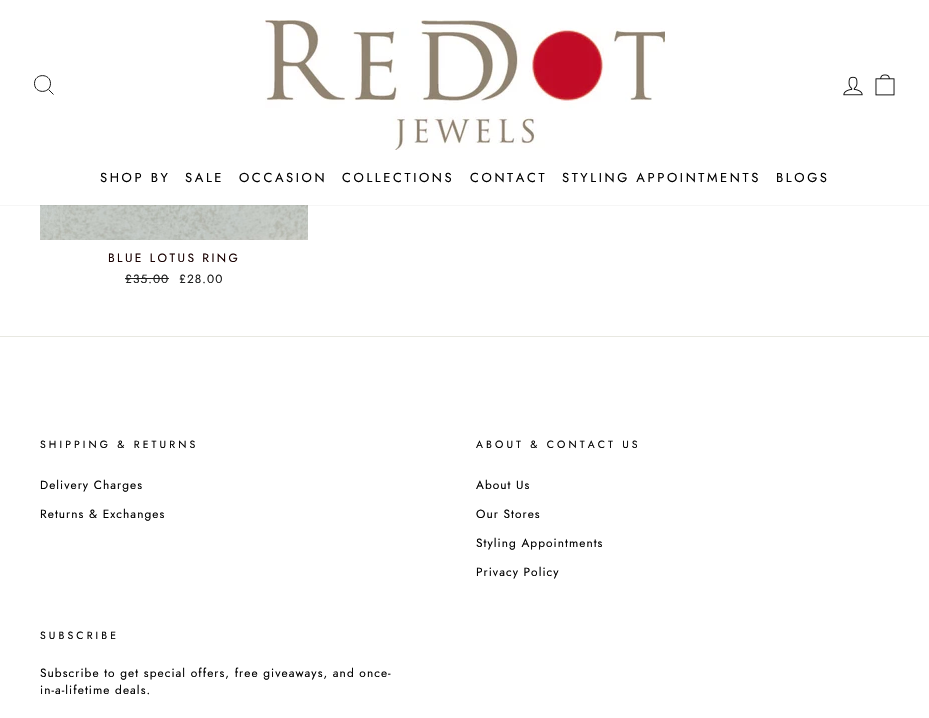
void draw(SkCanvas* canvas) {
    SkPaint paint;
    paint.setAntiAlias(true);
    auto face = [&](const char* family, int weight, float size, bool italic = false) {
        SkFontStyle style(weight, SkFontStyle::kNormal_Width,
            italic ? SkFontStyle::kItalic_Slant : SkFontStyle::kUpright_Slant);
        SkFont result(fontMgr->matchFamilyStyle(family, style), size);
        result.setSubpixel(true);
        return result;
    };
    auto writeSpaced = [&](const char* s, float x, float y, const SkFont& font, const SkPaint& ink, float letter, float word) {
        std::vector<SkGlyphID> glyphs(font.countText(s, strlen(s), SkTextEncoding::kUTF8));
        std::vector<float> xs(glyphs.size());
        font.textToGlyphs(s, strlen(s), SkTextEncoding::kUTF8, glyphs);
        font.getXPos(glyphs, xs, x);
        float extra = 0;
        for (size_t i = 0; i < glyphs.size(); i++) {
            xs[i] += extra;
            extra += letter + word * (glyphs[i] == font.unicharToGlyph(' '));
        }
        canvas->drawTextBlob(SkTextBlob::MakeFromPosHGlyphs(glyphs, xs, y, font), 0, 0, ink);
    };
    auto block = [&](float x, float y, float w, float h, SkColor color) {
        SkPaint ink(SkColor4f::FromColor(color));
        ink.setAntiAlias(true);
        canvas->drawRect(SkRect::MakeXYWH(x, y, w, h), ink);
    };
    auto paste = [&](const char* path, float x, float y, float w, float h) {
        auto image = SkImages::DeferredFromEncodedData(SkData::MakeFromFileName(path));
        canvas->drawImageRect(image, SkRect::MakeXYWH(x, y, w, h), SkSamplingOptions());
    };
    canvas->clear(SK_ColorWHITE);
    paste("pic4.png", 40, 205, 268, 35);
    paint.setColor(SkColorSetARGB(51, 0, 0, 0));
    paint.setMaskFilter(SkMaskFilter::MakeBlur(kNormal_SkBlurStyle, 0.5f));
    canvas->drawRect(SkRect::MakeXYWH(0, 0, 929, 205), paint);
    paint.setMaskFilter(nullptr);
    block(0, 0, 929, 205, SK_ColorWHITE);
    paint.setStyle(SkPaint::kStroke_Style);
    paint.setStrokeWidth(0.9f);
    paint.setColor(SK_ColorBLACK);
    canvas->drawPath(SkPathBuilder().moveTo(50.5f, 83.5f).cubicTo(50.5f, 94, 34.5f, 94, 34.5f, 83.5f).cubicTo(34.5f, 73, 50.5f, 73, 50.5f, 83.5f).close().moveTo(53.5f, 94.5f).lineTo(48.5f, 89.5f).detach(), paint);
    paste("pic1.png", 265, 20, 400, 130);
    paste("pic2.png", 843, 76, 20, 20);
    paste("pic3.png", 875, 74, 20, 22);
    auto kFont1 = face("Jost", 400, 13);
    paint.setStyle(SkPaint::kFill_Style);
    writeSpaced("SHOP BY", 100, 182, kFont1, paint, 2.6f, 0);
    writeSpaced("SALE", 185, 182, kFont1, paint, 2.6f, 0);
    writeSpaced("OCCASION", 239, 182, kFont1, paint, 2.6f, 0);
    writeSpaced("COLLECTIONS", 342, 182, kFont1, paint, 2.6f, 0);
    writeSpaced("CONTACT", 470, 182, kFont1, paint, 2.6f, 0);
    writeSpaced("STYLING APPOINTMENTS", 562, 182, kFont1, paint, 2.6f, 0);
    writeSpaced("BLOGS", 776, 182, kFont1, paint, 2.6f, 0);
    auto kFont2 = face("Jost", 400, 12);
    paint.setColor(SkColorSetRGB(25, 1, 1));
    writeSpaced("BLUE LOTUS RING", 108, 262, kFont2, paint, 2.4f, 0);
    auto kFont3 = face("Jost", 400, 11.9f);
    paint.setColor(SkColorSetRGB(28, 29, 29));
    writeSpaced("£35.00", 125, 283, kFont3, paint, 1.05f, 0);
    block(125, 278, 44, 1, SkColorSetRGB(28, 29, 29));
    writeSpaced("£28.00", 179, 283, kFont3, paint, 1.05f, 0);
    block(0, 336, 929, 1, SkColorSetRGB(232, 232, 225));
    auto kFont4 = face("Jost", 400, 10.5f);
    paint.setColor(SK_ColorBLACK);
    writeSpaced("SHIPPING & RETURNS", 40, 448, kFont4, paint, 3.1f, 0);
    writeSpaced("Delivery Charges", 40, 489, kFont3, paint, 1.05f, 0);
    writeSpaced("Returns & Exchanges", 40, 518, kFont3, paint, 1.05f, 0);
    writeSpaced("ABOUT & CONTACT US", 476, 448, kFont4, paint, 3.1f, 0);
    writeSpaced("About Us", 476, 489, kFont3, paint, 1.05f, 0);
    writeSpaced("Our Stores", 476, 518, kFont3, paint, 1.05f, 0);
    writeSpaced("Styling Appointments", 476, 547, kFont3, paint, 1.05f, 0);
    writeSpaced("Privacy Policy", 476, 576, kFont3, paint, 1.05f, 0);
    writeSpaced("SUBSCRIBE", 40, 639, kFont4, paint, 3.1f, 0);
    writeSpaced("Subscribe to get special offers, free giveaways, and once-", 40, 677, kFont3, paint, 1.05f, 0);
    writeSpaced("in-a-lifetime deals.", 40, 694, kFont3, paint, 1.05f, 0);
}
